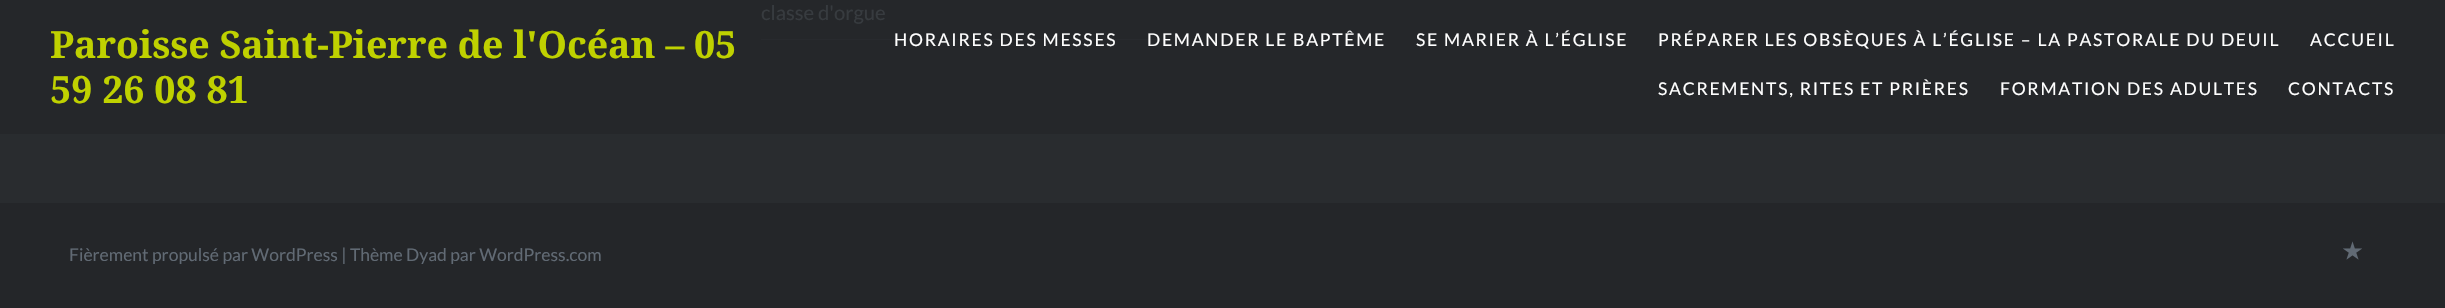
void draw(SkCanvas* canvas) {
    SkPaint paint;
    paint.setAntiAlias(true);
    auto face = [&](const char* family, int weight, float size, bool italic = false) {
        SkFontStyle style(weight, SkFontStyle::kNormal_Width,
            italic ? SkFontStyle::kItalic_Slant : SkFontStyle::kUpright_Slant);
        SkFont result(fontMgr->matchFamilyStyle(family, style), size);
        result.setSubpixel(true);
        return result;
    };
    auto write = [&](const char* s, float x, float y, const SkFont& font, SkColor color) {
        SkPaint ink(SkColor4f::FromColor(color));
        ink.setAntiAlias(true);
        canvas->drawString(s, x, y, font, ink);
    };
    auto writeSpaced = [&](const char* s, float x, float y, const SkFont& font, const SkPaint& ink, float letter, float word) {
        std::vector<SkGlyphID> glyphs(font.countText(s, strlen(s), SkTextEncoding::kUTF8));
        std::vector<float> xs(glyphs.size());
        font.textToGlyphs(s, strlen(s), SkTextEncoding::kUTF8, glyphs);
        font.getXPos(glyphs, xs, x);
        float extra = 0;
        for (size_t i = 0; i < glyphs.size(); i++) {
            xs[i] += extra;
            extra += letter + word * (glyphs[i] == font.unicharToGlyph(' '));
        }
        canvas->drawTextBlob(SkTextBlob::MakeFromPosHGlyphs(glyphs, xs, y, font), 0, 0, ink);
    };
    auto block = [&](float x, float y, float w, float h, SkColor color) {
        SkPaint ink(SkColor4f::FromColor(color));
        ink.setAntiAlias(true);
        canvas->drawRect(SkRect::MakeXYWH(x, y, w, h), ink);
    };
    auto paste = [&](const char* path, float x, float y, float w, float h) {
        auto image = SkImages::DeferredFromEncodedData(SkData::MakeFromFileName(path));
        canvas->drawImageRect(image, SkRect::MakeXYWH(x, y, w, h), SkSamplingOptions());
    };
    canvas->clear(SkColorSetRGB(41, 44, 47));
    block(0, 0, 2445, 134, SkColorSetRGB(37, 39, 42));
    block(761, 39, 404, 1, SkColorSetRGB(40, 42, 46));
    auto kFont1 = face("Lato", 400, 20.25f);
    write("classe d'orgue", 761, 20, kFont1, SkColorSetRGB(55, 59, 63));
    block(0, 203, 2445, 105, SkColorSetRGB(36, 38, 41));
    auto kFont2 = face("Lato", 400, 17.5f);
    write("Fièrement propulsé par WordPress | Thème Dyad par WordPress.com", 69, 261, kFont2, SkColorSetRGB(97, 106, 116));
    paste("pic1.png", 2343, 241, 19, 19);
    auto kFont3 = face("Noto Serif", 700, 37.5f);
    write("Paroisse Saint-Pierre de l'Océan – 05", 50, 58, kFont3, SkColorSetRGB(191, 209, 0));
    write("59 26 08 81", 50, 103, kFont3, SkColorSetRGB(191, 209, 0));
    paint.setColor(SK_ColorWHITE);
    writeSpaced("HORAIRES DES MESSES", 894, 46, kFont2, paint, 1.75f, 0);
    writeSpaced("DEMANDER LE BAPTÊME", 1147, 46, kFont2, paint, 1.75f, 0);
    writeSpaced("SE MARIER À L’ÉGLISE", 1416, 46, kFont2, paint, 1.75f, 0);
    writeSpaced("PRÉPARER LES OBSÈQUES À L’ÉGLISE – LA PASTORALE DU DEUIL", 1658, 46, kFont2, paint, 1.75f, 0);
    writeSpaced("ACCUEIL", 2310, 46, kFont2, paint, 1.75f, 0);
    writeSpaced("SACREMENTS, RITES ET PRIÈRES", 1658, 95, kFont2, paint, 1.75f, 0);
    writeSpaced("FORMATION DES ADULTES", 2000, 95, kFont2, paint, 1.75f, 0);
    writeSpaced("CONTACTS", 2288, 95, kFont2, paint, 1.75f, 0);
}
